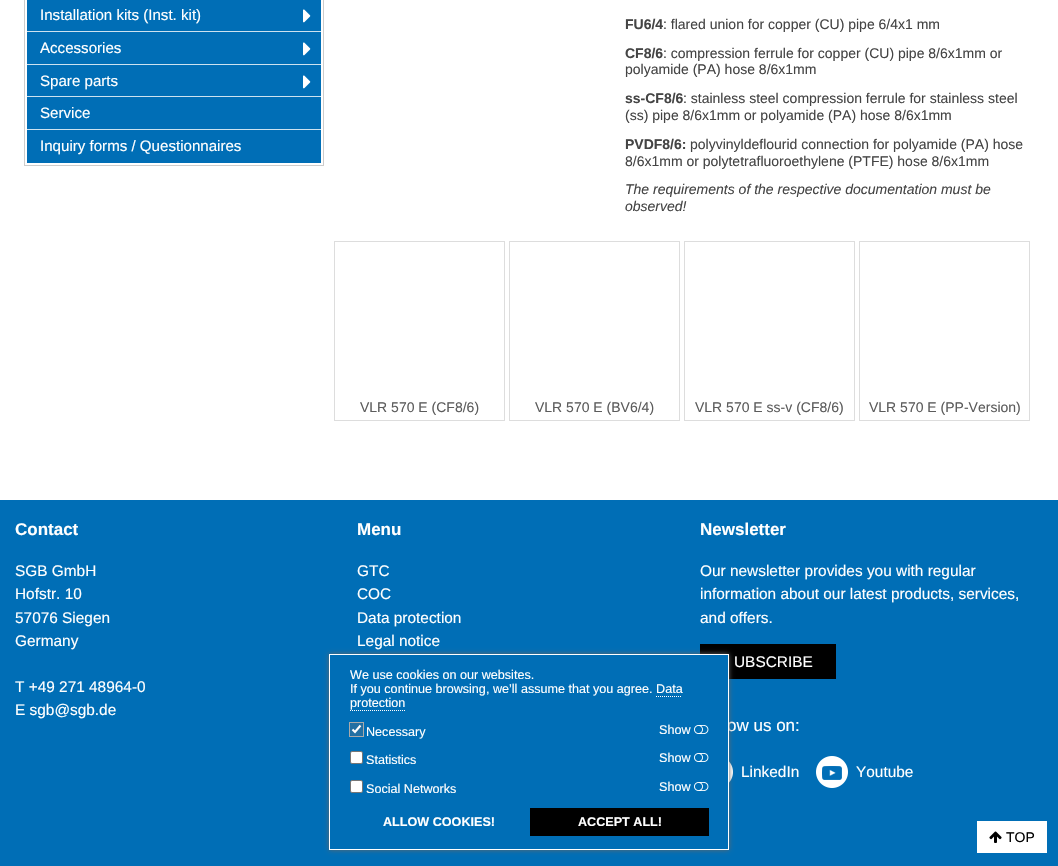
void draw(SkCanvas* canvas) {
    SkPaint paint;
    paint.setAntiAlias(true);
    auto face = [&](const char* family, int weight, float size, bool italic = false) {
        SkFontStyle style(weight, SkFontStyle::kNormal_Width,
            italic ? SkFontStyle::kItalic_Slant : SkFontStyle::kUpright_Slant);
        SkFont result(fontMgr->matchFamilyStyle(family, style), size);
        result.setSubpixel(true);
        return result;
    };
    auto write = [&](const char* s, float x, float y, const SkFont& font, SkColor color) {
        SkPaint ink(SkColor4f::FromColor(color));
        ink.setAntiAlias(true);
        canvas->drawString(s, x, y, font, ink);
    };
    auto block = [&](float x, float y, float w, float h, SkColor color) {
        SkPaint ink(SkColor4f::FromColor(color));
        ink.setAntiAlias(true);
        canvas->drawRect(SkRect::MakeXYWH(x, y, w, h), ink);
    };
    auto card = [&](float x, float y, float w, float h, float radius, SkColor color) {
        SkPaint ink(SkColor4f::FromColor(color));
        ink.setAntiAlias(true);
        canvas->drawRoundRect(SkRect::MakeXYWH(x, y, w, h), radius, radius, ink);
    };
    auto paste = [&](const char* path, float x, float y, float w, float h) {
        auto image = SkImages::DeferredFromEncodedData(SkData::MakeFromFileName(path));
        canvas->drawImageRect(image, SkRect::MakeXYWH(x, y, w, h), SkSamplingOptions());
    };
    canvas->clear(SK_ColorWHITE);
    paint.setStyle(SkPaint::kStroke_Style);
    paint.setStrokeWidth(1);
    paint.setColor(SkColorSetRGB(204, 204, 204));
    canvas->drawRect(SkRect::MakeXYWH(24.5f, -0.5f, 299, 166), paint);
    block(27, 0, 294, 31, SkColorSetRGB(0, 110, 182));
    auto kFont1 = face("Liberation Sans", 400, 15.1f);
    write("Installation kits (Inst. kit)", 40, 20, kFont1, SK_ColorWHITE);
    paste("pic1.png", 303, 9, 8, 14);
    block(27, 32, 294, 32, SkColorSetRGB(0, 110, 182));
    block(27, 31, 294, 1, SkColorSetRGB(204, 226, 240));
    write("Accessories", 40, 53, kFont1, SK_ColorWHITE);
    paste("pic1.png", 303, 42, 8, 14);
    block(27, 65, 294, 31, SkColorSetRGB(0, 110, 182));
    block(27, 64, 294, 1, SkColorSetRGB(204, 226, 240));
    write("Spare parts", 40, 86, kFont1, SK_ColorWHITE);
    paste("pic1.png", 303, 75, 8, 14);
    block(27, 97, 294, 32, SkColorSetRGB(0, 110, 182));
    block(27, 96, 294, 1, SkColorSetRGB(204, 226, 240));
    write("Service", 40, 118, kFont1, SK_ColorWHITE);
    block(27, 130, 294, 33, SkColorSetRGB(0, 110, 182));
    block(27, 129, 294, 1, SkColorSetRGB(204, 226, 240));
    write("Inquiry forms / Questionnaires", 40, 151, kFont1, SK_ColorWHITE);
    auto kFont2 = face("Liberation Sans", 700, 14);
    write("FU6/4", 625, 29, kFont2, SkColorSetRGB(68, 68, 68));
    auto kFont3 = face("Liberation Sans", 400, 14);
    write(": flared union for copper (CU) pipe 6/4x1 mm", 663, 29, kFont3, SkColorSetRGB(68, 68, 68));
    write("CF8/6", 625, 58, kFont2, SkColorSetRGB(68, 68, 68));
    write(": compression ferrule for copper (CU) pipe 8/6x1mm or", 663, 58, kFont3, SkColorSetRGB(68, 68, 68));
    write("polyamide (PA) hose 8/6x1mm", 625, 74, kFont3, SkColorSetRGB(68, 68, 68));
    write("ss-CF8/6", 625, 103, kFont2, SkColorSetRGB(68, 68, 68));
    write(": stainless steel compression ferrule for stainless steel", 683, 103, kFont3, SkColorSetRGB(68, 68, 68));
    write("(ss) pipe 8/6x1mm or polyamide (PA) hose 8/6x1mm", 625, 120, kFont3, SkColorSetRGB(68, 68, 68));
    write("PVDF8/6:", 625, 149, kFont2, SkColorSetRGB(68, 68, 68));
    write("polyvinyldeflourid connection for polyamide (PA) hose", 690, 149, kFont3, SkColorSetRGB(68, 68, 68));
    write("8/6x1mm or polytetrafluoroethylene (PTFE) hose 8/6x1mm", 625, 166, kFont3, SkColorSetRGB(68, 68, 68));
    auto kFont4 = face("Liberation Sans", 400, 14, true);
    write("The requirements of the respective documentation must be", 625, 194, kFont4, SkColorSetRGB(68, 68, 68));
    write("observed!", 625, 211, kFont4, SkColorSetRGB(68, 68, 68));
    paint.setColor(SkColorSetRGB(221, 221, 221));
    canvas->drawRect(SkRect::MakeXYWH(334.5f, 241.5f, 170, 179), paint);
    write("VLR 570 E (CF8/6)", 360, 412, kFont3, SkColorSetRGB(92, 92, 92));
    canvas->drawRect(SkRect::MakeXYWH(509.5f, 241.5f, 170, 179), paint);
    write("VLR 570 E (BV6/4)", 535, 412, kFont3, SkColorSetRGB(92, 92, 92));
    canvas->drawRect(SkRect::MakeXYWH(684.5f, 241.5f, 170, 179), paint);
    write("VLR 570 E ss-v (CF8/6)", 695, 412, kFont3, SkColorSetRGB(92, 92, 92));
    canvas->drawRect(SkRect::MakeXYWH(859.5f, 241.5f, 170, 179), paint);
    write("VLR 570 E (PP-Version)", 869, 412, kFont3, SkColorSetRGB(92, 92, 92));
    block(0, 500, 1058, 366, SkColorSetRGB(0, 110, 182));
    auto kFont5 = face("Liberation Sans", 700, 17);
    write("Contact", 15, 535, kFont5, SK_ColorWHITE);
    auto kFont6 = face("Liberation Sans", 400, 15.4f);
    write("SGB GmbH", 15, 576, kFont6, SK_ColorWHITE);
    write("Hofstr. 10", 15, 599, kFont6, SK_ColorWHITE);
    write("57076 Siegen", 15, 623, kFont6, SK_ColorWHITE);
    write("Germany", 15, 646, kFont6, SK_ColorWHITE);
    write("T +49 271 48964-0", 15, 692, kFont6, SK_ColorWHITE);
    write("E sgb@sgb.de", 15, 715, kFont6, SK_ColorWHITE);
    write("Menu", 357, 535, kFont5, SK_ColorWHITE);
    write("GTC", 357, 576, kFont6, SK_ColorWHITE);
    write("COC", 357, 599, kFont6, SK_ColorWHITE);
    write("Data protection", 357, 623, kFont6, SK_ColorWHITE);
    write("Legal notice", 357, 646, kFont6, SK_ColorWHITE);
    write("Newsletter", 700, 535, kFont5, SK_ColorWHITE);
    write("Our newsletter provides you with regular", 700, 576, kFont6, SK_ColorWHITE);
    write("information about our latest products, services,", 700, 599, kFont6, SK_ColorWHITE);
    write("and offers.", 700, 623, kFont6, SK_ColorWHITE);
    block(700, 644, 136, 35, SK_ColorBLACK);
    write("UBSCRIBE", 734, 667, kFont6, SK_ColorWHITE);
    auto kFont7 = face("Liberation Sans", 400, 17);
    write("ow us on:", 727, 731, kFont7, SK_ColorWHITE);
    paste("pic2.png", 729, 761, 4, 22);
    write("LinkedIn", 741, 777, kFont6, SK_ColorWHITE);
    paste("pic3.png", 816, 756, 32, 32);
    write("Youtube", 856, 777, kFont6, SK_ColorWHITE);
    paint.setStyle(SkPaint::kFill_Style);
    paint.setColor(SkColorSetRGB(102, 102, 102));
    paint.setMaskFilter(SkMaskFilter::MakeBlur(kNormal_SkBlurStyle, 2.5f));
    canvas->drawRect(SkRect::MakeXYWH(329, 654, 400, 196), paint);
    paint.setMaskFilter(nullptr);
    paint.setColor(SkColorSetRGB(0, 110, 182));
    canvas->drawRect(SkRect::MakeXYWH(329.5f, 654.5f, 399, 195), paint);
    paint.setStyle(SkPaint::kStroke_Style);
    paint.setColor(SK_ColorWHITE);
    canvas->drawRect(SkRect::MakeXYWH(329.5f, 654.5f, 399, 195), paint);
    auto kFont8 = face("Liberation Sans", 400, 12.6f);
    write("We use cookies on our websites.", 350, 679, kFont8, SK_ColorWHITE);
    write("If you continue browsing, we’ll assume that you agree. Data", 350, 693, kFont8, SK_ColorWHITE);
    write("protection", 350, 707, kFont8, SK_ColorWHITE);
    paint.setPathEffect(SkDashPathEffect::Make({{1, 1}}, 0));
    canvas->drawPath(SkPathBuilder().moveTo(656, 696.5f).lineTo(682, 696.5f).detach(), paint);
    paint.setPathEffect(nullptr);
    paint.setPathEffect(SkDashPathEffect::Make({{1, 1}}, 0));
    canvas->drawPath(SkPathBuilder().moveTo(350, 710.5f).lineTo(405, 710.5f).detach(), paint);
    paint.setPathEffect(nullptr);
    card(350, 723, 13, 13, 2, SkColorSetRGB(35, 112, 163));
    paint.setStrokeWidth(2.1f);
    canvas->drawPath(SkPathBuilder().moveTo(352.5f, 729.5f).lineTo(355, 732).lineTo(360.5f, 725.5f).detach(), paint);
    paint.setStrokeWidth(1);
    paint.setColor(SkColorSetRGB(170, 170, 170));
    canvas->drawRect(SkRect::MakeXYWH(349.5f, 722.5f, 14, 14), paint);
    write("Necessary", 366, 736, kFont8, SK_ColorWHITE);
    write("Show", 659, 734, kFont8, SK_ColorWHITE);
    paste("pic4.png", 694, 725, 15, 9);
    paint.setStyle(SkPaint::kFill_Style);
    paint.setColor(SK_ColorWHITE);
    canvas->drawRoundRect(SkRect::MakeXYWH(350.5f, 751.5f, 12, 12), 1.5f, 1.5f, paint);
    paint.setStyle(SkPaint::kStroke_Style);
    paint.setColor(SkColorSetRGB(118, 118, 118));
    canvas->drawRoundRect(SkRect::MakeXYWH(350.5f, 751.5f, 12, 12), 1.5f, 1.5f, paint);
    write("Statistics", 366, 764, kFont8, SK_ColorWHITE);
    write("Show", 659, 762, kFont8, SK_ColorWHITE);
    paste("pic4.png", 694, 753, 15, 9);
    paint.setStyle(SkPaint::kFill_Style);
    paint.setColor(SK_ColorWHITE);
    canvas->drawRoundRect(SkRect::MakeXYWH(350.5f, 780.5f, 12, 12), 1.5f, 1.5f, paint);
    paint.setStyle(SkPaint::kStroke_Style);
    paint.setColor(SkColorSetRGB(118, 118, 118));
    canvas->drawRoundRect(SkRect::MakeXYWH(350.5f, 780.5f, 12, 12), 1.5f, 1.5f, paint);
    write("Social Networks", 366, 793, kFont8, SK_ColorWHITE);
    write("Show", 659, 791, kFont8, SK_ColorWHITE);
    paste("pic4.png", 694, 782, 15, 9);
    auto kFont9 = face("Liberation Sans", 700, 12.6f);
    write("ALLOW COOKIES!", 383, 826, kFont9, SK_ColorWHITE);
    block(530, 808, 179, 28, SK_ColorBLACK);
    write("ACCEPT ALL!", 578, 826, kFont9, SK_ColorWHITE);
    block(977, 821, 70, 32, SK_ColorWHITE);
    paste("pic5.png", 989, 831, 13, 12);
    write("TOP", 1006, 842, kFont3, SK_ColorBLACK);
}
